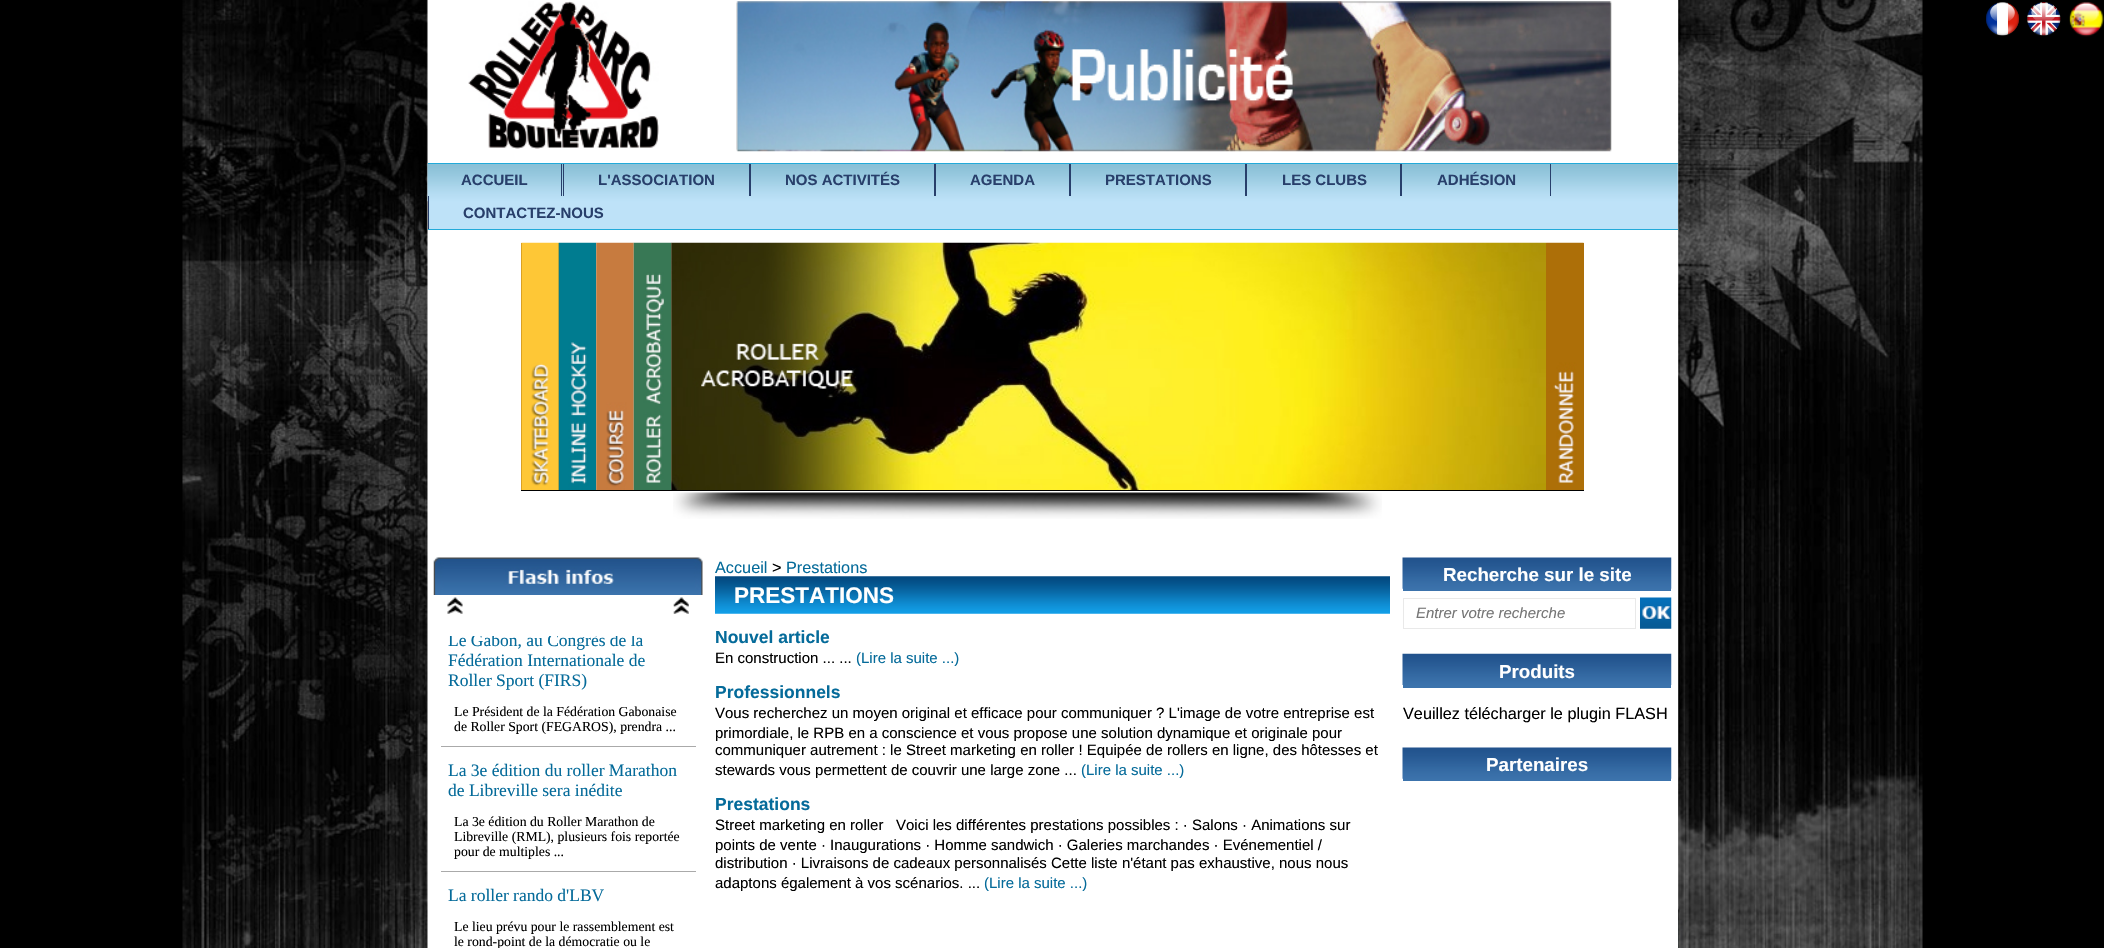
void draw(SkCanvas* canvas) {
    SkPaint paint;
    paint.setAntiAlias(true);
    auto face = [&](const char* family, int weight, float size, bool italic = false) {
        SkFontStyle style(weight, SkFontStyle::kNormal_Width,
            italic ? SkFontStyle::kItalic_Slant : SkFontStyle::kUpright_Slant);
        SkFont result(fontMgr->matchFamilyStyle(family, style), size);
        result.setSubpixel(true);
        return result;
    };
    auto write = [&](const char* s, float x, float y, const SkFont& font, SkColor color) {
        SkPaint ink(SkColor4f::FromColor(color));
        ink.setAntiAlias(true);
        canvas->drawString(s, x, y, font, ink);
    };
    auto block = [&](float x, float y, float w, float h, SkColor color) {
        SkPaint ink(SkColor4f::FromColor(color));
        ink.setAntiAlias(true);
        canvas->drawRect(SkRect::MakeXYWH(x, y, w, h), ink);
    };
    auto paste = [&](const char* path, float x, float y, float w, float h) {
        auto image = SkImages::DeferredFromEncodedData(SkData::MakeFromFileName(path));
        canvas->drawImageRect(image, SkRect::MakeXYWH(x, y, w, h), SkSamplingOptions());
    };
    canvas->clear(SK_ColorBLACK);
    paste("pic1.png", 182, 0, 1741, 948);
    paste("pic2.png", 1986, 2, 33, 34);
    paste("pic3.png", 2027, 2, 34, 34);
    paste("pic4.png", 2069, 1, 35, 36);
    block(1677, 0, 1, 948, SK_ColorWHITE);
    paste("pic5.png", 468, 1, 191, 148);
    paste("pic6.png", 736, 1, 876, 151);
    block(429, 164, 1249, 65, SkColorSetRGB(190, 226, 248));
    paste("pic7.png", 427, 163, 1251, 39);
    block(428, 163, 1250, 1, SkColorSetRGB(35, 170, 217));
    block(428, 229, 1250, 1, SkColorSetRGB(35, 170, 217));
    block(561, 164, 1, 32, SkColorSetRGB(40, 63, 107));
    auto kFont1 = face("Liberation Sans", 700, 15);
    write("ACCUEIL", 461, 185, kFont1, SkColorSetRGB(40, 63, 107));
    block(749, 164, 2, 32, SkColorSetRGB(40, 63, 107));
    block(563, 164, 1, 32, SkColorSetRGB(40, 63, 107));
    write("L'ASSOCIATION", 598, 185, kFont1, SkColorSetRGB(40, 63, 107));
    block(934, 164, 2, 32, SkColorSetRGB(40, 63, 107));
    write("NOS ACTIVITÉS", 785, 185, kFont1, SkColorSetRGB(40, 63, 107));
    block(1069, 164, 2, 32, SkColorSetRGB(40, 63, 107));
    write("AGENDA", 970, 185, kFont1, SkColorSetRGB(40, 63, 107));
    block(1245, 164, 2, 32, SkColorSetRGB(40, 63, 107));
    write("PRESTATIONS", 1105, 185, kFont1, SkColorSetRGB(40, 63, 107));
    block(1400, 164, 2, 32, SkColorSetRGB(40, 63, 107));
    write("LES CLUBS", 1282, 185, kFont1, SkColorSetRGB(40, 63, 107));
    block(1550, 164, 1, 32, SkColorSetRGB(40, 63, 107));
    write("ADHÉSION", 1437, 185, kFont1, SkColorSetRGB(40, 63, 107));
    block(428, 196, 1, 33, SkColorSetRGB(40, 63, 107));
    write("CONTACTEZ-NOUS", 463, 218, kFont1, SkColorSetRGB(40, 63, 107));
    paste("pic8.png", 673, 492, 709, 27);
    block(521, 243, 38, 247, SkColorSetRGB(173, 111, 8));
    block(521, 490, 1063, 1, SK_ColorBLACK);
    paste("pic9.png", 521, 242, 38, 248);
    paste("pic10.png", 558, 242, 39, 248);
    paste("pic11.png", 596, 242, 38, 248);
    paste("pic12.png", 633, 242, 39, 248);
    paste("pic13.png", 671, 242, 876, 248);
    block(1546, 243, 38, 247, SkColorSetRGB(173, 111, 8));
    paste("pic14.png", 1546, 242, 38, 241);
    paste("pic15.png", 433, 557, 270, 38);
    paste("pic16.png", 447, 597, 242, 17);
    canvas->save();
    canvas->clipRect(SkRect::MakeXYWH(440, 636, 256, 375));
    auto kFont2 = face("Liberation Serif", 400, 17.5f);
    write("Le Gabon, au Congrès de la", 448, 646, kFont2, SkColorSetRGB(5, 107, 154));
    canvas->restore();
    write("Fédération Internationale de", 448, 666, kFont2, SkColorSetRGB(5, 107, 154));
    write("Roller Sport (FIRS)", 448, 686, kFont2, SkColorSetRGB(5, 107, 154));
    block(440, 746, 256, 1, SkColorSetRGB(170, 170, 170));
    block(440, 746, 1, 2, SK_ColorWHITE);
    auto kFont3 = face("Liberation Serif", 400, 13.75f);
    write("Le Président de la Fédération Gabonaise", 454, 716, kFont3, SK_ColorBLACK);
    write("de Roller Sport (FEGAROS), prendra ...", 454, 731, kFont3, SK_ColorBLACK);
    write("La 3e édition du roller Marathon", 448, 776, kFont2, SkColorSetRGB(5, 107, 154));
    write("de Libreville sera inédite", 448, 796, kFont2, SkColorSetRGB(5, 107, 154));
    block(440, 871, 256, 1, SkColorSetRGB(170, 170, 170));
    block(440, 871, 1, 2, SK_ColorWHITE);
    write("La 3e édition du Roller Marathon de", 454, 826, kFont3, SK_ColorBLACK);
    write("Libreville (RML), plusieurs fois reportée", 454, 841, kFont3, SK_ColorBLACK);
    write("pour de multiples ...", 454, 856, kFont3, SK_ColorBLACK);
    write("La roller rando d'LBV", 448, 901, kFont2, SkColorSetRGB(5, 107, 154));
    write("Le lieu prévu pour le rassemblement est", 454, 931, kFont3, SK_ColorBLACK);
    write("le rond-point de la démocratie ou le", 454, 946, kFont3, SK_ColorBLACK);
    auto kFont4 = face("Liberation Sans", 400, 16.25f);
    write("Accueil", 715, 573, kFont4, SkColorSetRGB(5, 107, 154));
    write(">", 772, 573, kFont4, SK_ColorBLACK);
    write("Prestations", 786, 573, kFont4, SkColorSetRGB(5, 107, 154));
    paste("pic17.png", 715, 576, 675, 38);
    auto kFont5 = face("Liberation Sans", 700, 22.5f);
    write("PRESTATIONS", 734, 603, kFont5, SK_ColorWHITE);
    auto kFont6 = face("Liberation Sans", 700, 17.5f);
    write("Nouvel article", 715, 643, kFont6, SkColorSetRGB(5, 107, 154));
    auto kFont7 = face("Liberation Sans", 400, 15);
    write("En construction ... ...", 715, 663, kFont7, SK_ColorBLACK);
    write("(Lire la suite ...)", 856, 663, kFont7, SkColorSetRGB(5, 107, 154));
    write("Professionnels", 715, 698, kFont6, SkColorSetRGB(5, 107, 154));
    write("Vous recherchez un moyen original et efficace pour communiquer ? L'image de votre entreprise est", 715, 718, kFont7, SK_ColorBLACK);
    write("primordiale, le RPB en a conscience et vous propose une solution dynamique et originale pour", 715, 738, kFont7, SK_ColorBLACK);
    write("communiquer autrement : le Street marketing en roller ! Equipée de rollers en ligne, des hôtesses et", 715, 755, kFont7, SK_ColorBLACK);
    write("stewards vous permettent de couvrir une large zone ...", 715, 775, kFont7, SK_ColorBLACK);
    write("(Lire la suite ...)", 1081, 775, kFont7, SkColorSetRGB(5, 107, 154));
    write("Prestations", 715, 810, kFont6, SkColorSetRGB(5, 107, 154));
    write("Street marketing en roller", 715, 830, kFont7, SK_ColorBLACK);
    write("Voici les différentes prestations possibles : · Salons · Animations sur", 896, 830, kFont7, SK_ColorBLACK);
    write("points de vente · Inaugurations · Homme sandwich · Galeries marchandes · Evénementiel /", 715, 850, kFont7, SK_ColorBLACK);
    write("distribution · Livraisons de cadeaux personnalisés Cette liste n'étant pas exhaustive, nous nous", 715, 868, kFont7, SK_ColorBLACK);
    write("adaptons également à vos scénarios. ...", 715, 888, kFont7, SK_ColorBLACK);
    write("(Lire la suite ...)", 984, 888, kFont7, SkColorSetRGB(5, 107, 154));
    block(1403, 588, 268, 3, SkColorSetRGB(60, 115, 172));
    paste("pic18.png", 1402, 557, 270, 32);
    auto kFont8 = face("Liberation Sans", 700, 18.75f);
    write("Recherche sur le site", 1443, 581, kFont8, SK_ColorWHITE);
    paint.setStyle(SkPaint::kStroke_Style);
    paint.setStrokeWidth(1);
    paint.setColor(SkColorSetRGB(233, 233, 233));
    canvas->drawRect(SkRect::MakeXYWH(1403.5f, 598.5f, 232, 30), paint);
    auto kFont9 = face("Liberation Sans", 400, 15, true);
    write("Entrer votre recherche", 1416, 618, kFont9, SkColorSetRGB(117, 117, 117));
    paste("pic19.png", 1640, 597, 32, 32);
    block(1403, 685, 268, 3, SkColorSetRGB(60, 115, 172));
    paste("pic20.png", 1402, 653, 270, 32);
    write("Produits", 1499, 678, kFont8, SK_ColorWHITE);
    write("Veuillez télécharger le plugin FLASH", 1403, 719, kFont4, SK_ColorBLACK);
    block(1403, 778, 268, 3, SkColorSetRGB(60, 115, 172));
    paste("pic18.png", 1402, 747, 270, 32);
    write("Partenaires", 1486, 771, kFont8, SK_ColorWHITE);
}
